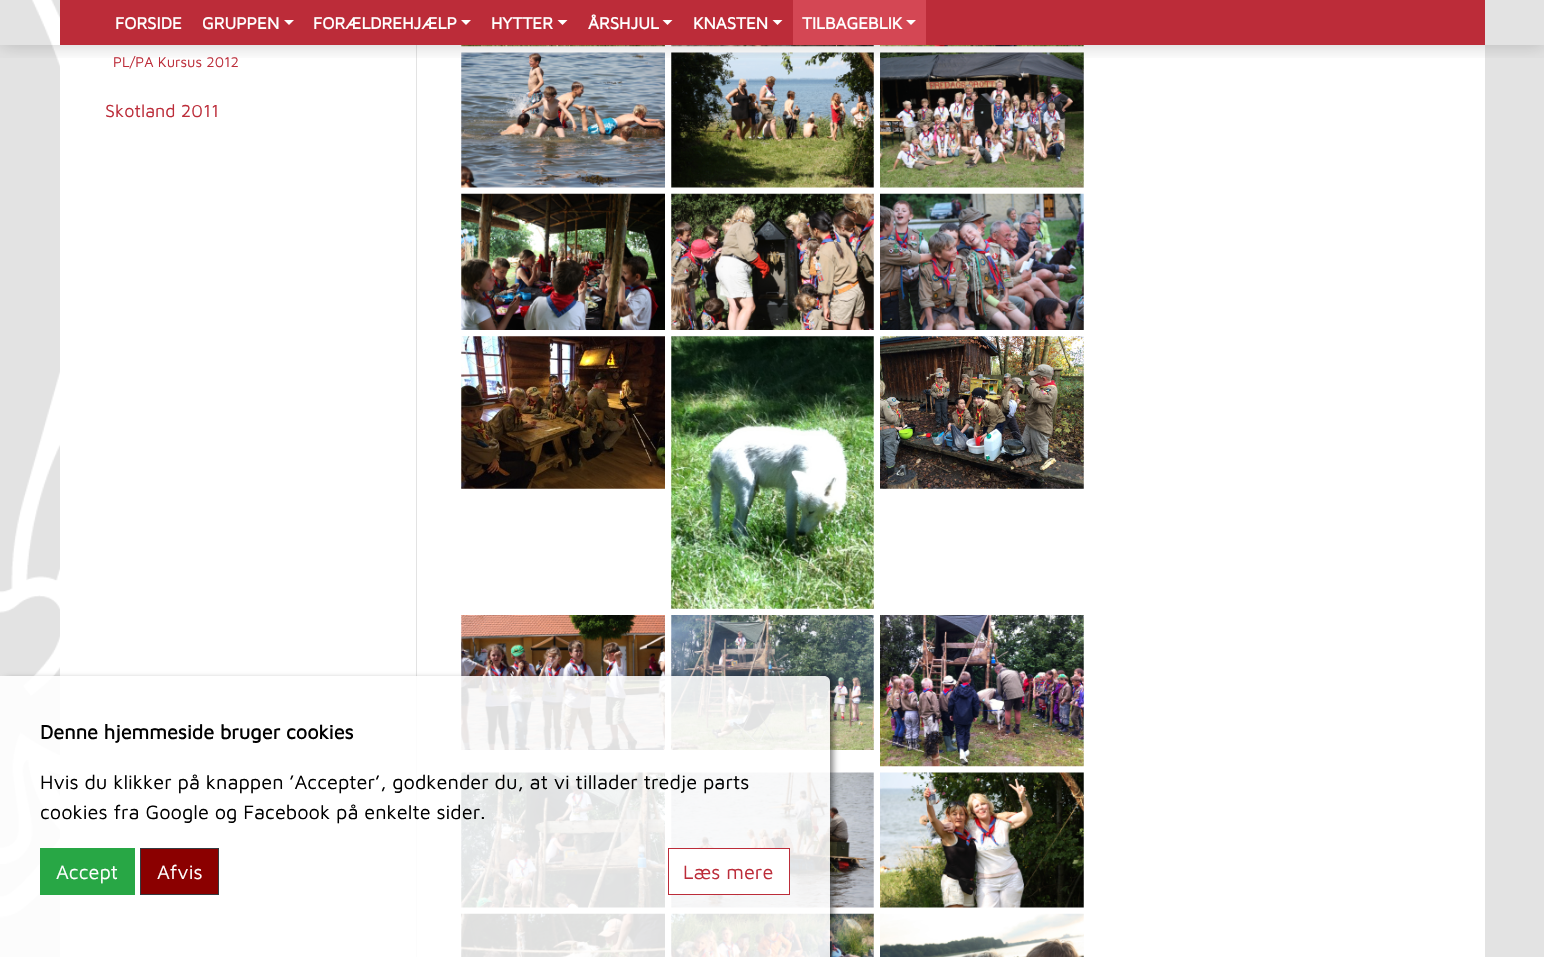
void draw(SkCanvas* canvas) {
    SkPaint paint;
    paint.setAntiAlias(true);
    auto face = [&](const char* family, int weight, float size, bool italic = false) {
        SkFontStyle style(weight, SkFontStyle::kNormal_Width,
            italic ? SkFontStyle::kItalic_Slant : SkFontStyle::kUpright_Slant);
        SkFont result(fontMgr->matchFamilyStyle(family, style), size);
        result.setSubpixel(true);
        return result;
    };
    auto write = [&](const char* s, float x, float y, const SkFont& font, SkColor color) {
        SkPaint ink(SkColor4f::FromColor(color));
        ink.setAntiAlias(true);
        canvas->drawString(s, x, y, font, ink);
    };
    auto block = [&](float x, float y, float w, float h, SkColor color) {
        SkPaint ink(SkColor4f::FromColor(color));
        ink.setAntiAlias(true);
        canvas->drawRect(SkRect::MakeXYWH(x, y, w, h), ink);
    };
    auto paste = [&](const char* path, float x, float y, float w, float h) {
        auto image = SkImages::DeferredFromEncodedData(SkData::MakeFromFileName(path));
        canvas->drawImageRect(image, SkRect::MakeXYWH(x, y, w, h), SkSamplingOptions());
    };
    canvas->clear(SkColorSetRGB(227, 227, 227));
    paste("pic1.png", 0, 0, 60, 918);
    block(60, 45, 1425, 912, SK_ColorWHITE);
    block(416, 45, 1, 912, SkColorSetRGB(227, 227, 227));
    paste("pic2.png", 461, 45, 204, 2);
    paste("pic3.png", 671, 45, 203, 2);
    paste("pic4.png", 880, 45, 204, 2);
    paste("pic5.png", 461, 52, 204, 136);
    paste("pic6.png", 671, 52, 203, 136);
    paste("pic7.png", 880, 52, 204, 136);
    canvas->save();
    canvas->clipRect(SkRect::MakeXYWH(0, 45, 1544, 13));
    paint.setColor(SkColorSetARGB(51, 0, 0, 0));
    paint.setMaskFilter(SkMaskFilter::MakeBlur(kNormal_SkBlurStyle, 10));
    canvas->drawRect(SkRect::MakeXYWH(0, 0, 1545, 45), paint);
    paint.setMaskFilter(nullptr);
    canvas->restore();
    block(60, 0, 1425, 45, SkColorSetRGB(188, 44, 57));
    auto kFont1 = face("Maven Pro", 700, 17);
    write("FORSIDE", 115, 29, kFont1, SK_ColorWHITE);
    write("GRUPPEN", 202, 29, kFont1, SK_ColorWHITE);
    paint.setColor(SK_ColorWHITE);
    canvas->drawPath(SkPathBuilder().moveTo(284, 20).lineTo(294, 20).lineTo(289, 25).close().detach(), paint);
    write("FORÆLDREHJÆLP", 313, 29, kFont1, SK_ColorWHITE);
    canvas->drawPath(SkPathBuilder().moveTo(461, 20).lineTo(471, 20).lineTo(466, 25).close().detach(), paint);
    write("HYTTER", 491, 29, kFont1, SK_ColorWHITE);
    canvas->drawPath(SkPathBuilder().moveTo(557.5f, 20).lineTo(567.5f, 20).lineTo(562.5f, 25).close().detach(), paint);
    write("ÅRSHJUL", 588, 29, kFont1, SK_ColorWHITE);
    canvas->drawPath(SkPathBuilder().moveTo(662.5f, 20).lineTo(672.5f, 20).lineTo(667.5f, 25).close().detach(), paint);
    write("KNASTEN", 693, 29, kFont1, SK_ColorWHITE);
    canvas->drawPath(SkPathBuilder().moveTo(772.5f, 20).lineTo(782.5f, 20).lineTo(777.5f, 25).close().detach(), paint);
    block(793, 0, 133, 45, SkColorSetRGB(212, 71, 84));
    write("TILBAGEBLIK", 802, 29, kFont1, SK_ColorWHITE);
    canvas->drawPath(SkPathBuilder().moveTo(906, 20).lineTo(916, 20).lineTo(911, 25).close().detach(), paint);
    auto kFont2 = face("Maven Pro", 400, 14.5f);
    write("PL/PA Kursus 2012", 113, 67, kFont2, SkColorSetRGB(188, 44, 57));
    auto kFont3 = face("Maven Pro", 400, 18);
    write("Skotland 2011", 105, 117, kFont3, SkColorSetRGB(188, 44, 57));
    paste("pic8.png", 461, 193, 204, 137);
    paste("pic9.png", 671, 193, 203, 137);
    paste("pic10.png", 880, 193, 204, 137);
    paste("pic11.png", 461, 336, 204, 153);
    paste("pic12.png", 671, 336, 203, 273);
    paste("pic13.png", 880, 336, 204, 153);
    paste("pic14.png", 461, 615, 204, 135);
    paste("pic15.png", 671, 615, 203, 135);
    paste("pic16.png", 880, 615, 204, 152);
    paste("pic17.png", 461, 772, 204, 136);
    paste("pic18.png", 671, 772, 203, 136);
    paste("pic19.png", 880, 772, 204, 136);
    paste("pic20.png", 461, 913, 204, 44);
    paste("pic21.png", 671, 913, 203, 44);
    paste("pic22.png", 880, 913, 204, 44);
    canvas->save();
    canvas->clipPath(SkPathBuilder(SkPathFillType::kEvenOdd).moveTo(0, 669).lineTo(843, 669).lineTo(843, 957).lineTo(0, 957).close().moveTo(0, 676).lineTo(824, 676).cubicTo(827.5f, 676, 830, 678.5f, 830, 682).lineTo(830, 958).lineTo(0, 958).close().detach(), true);
    paint.setColor(SkColorSetARGB(128, 0, 0, 0));
    paint.setMaskFilter(SkMaskFilter::MakeBlur(kNormal_SkBlurStyle, 3));
    canvas->drawRoundRect(SkRect::MakeXYWH(3, 679, 830, 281), 6, 6, paint);
    paint.setMaskFilter(nullptr);
    canvas->restore();
    paint.setColor(SkColorSetARGB(222, 255, 255, 255));
    canvas->drawPath(SkPathBuilder().moveTo(0, 676).lineTo(824, 676).cubicTo(827.5f, 676, 830, 678.5f, 830, 682).lineTo(830, 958).lineTo(0, 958).close().detach(), paint);
    auto kFont4 = face("Maven Pro", 700, 20);
    write("Denne hjemmeside bruger cookies", 40, 739, kFont4, SK_ColorBLACK);
    auto kFont5 = face("Maven Pro", 400, 20);
    write("Hvis du klikker på knappen ’Accepter’, godkender du, at vi tillader tredje parts", 40, 789, kFont5, SK_ColorBLACK);
    write("cookies fra Google og Facebook på enkelte sider.", 40, 819, kFont5, SK_ColorBLACK);
    block(40, 848, 95, 47, SkColorSetRGB(40, 167, 69));
    write("Accept", 56, 879, kFont5, SK_ColorWHITE);
    paint.setColor(SkColorSetRGB(139, 0, 0));
    canvas->drawRect(SkRect::MakeXYWH(140.5f, 848.5f, 78, 46), paint);
    paint.setStyle(SkPaint::kStroke_Style);
    paint.setStrokeWidth(1);
    paint.setColor(SkColorSetRGB(52, 58, 64));
    canvas->drawRect(SkRect::MakeXYWH(140.5f, 848.5f, 78, 46), paint);
    write("Afvis", 157, 879, kFont5, SK_ColorWHITE);
    block(671, 849, 118, 45, SK_ColorWHITE);
    paint.setColor(SkColorSetRGB(188, 44, 57));
    canvas->drawRect(SkRect::MakeXYWH(668.5f, 848.5f, 121, 46), paint);
    write("Læs mere", 683, 879, kFont5, SkColorSetRGB(188, 44, 57));
}
